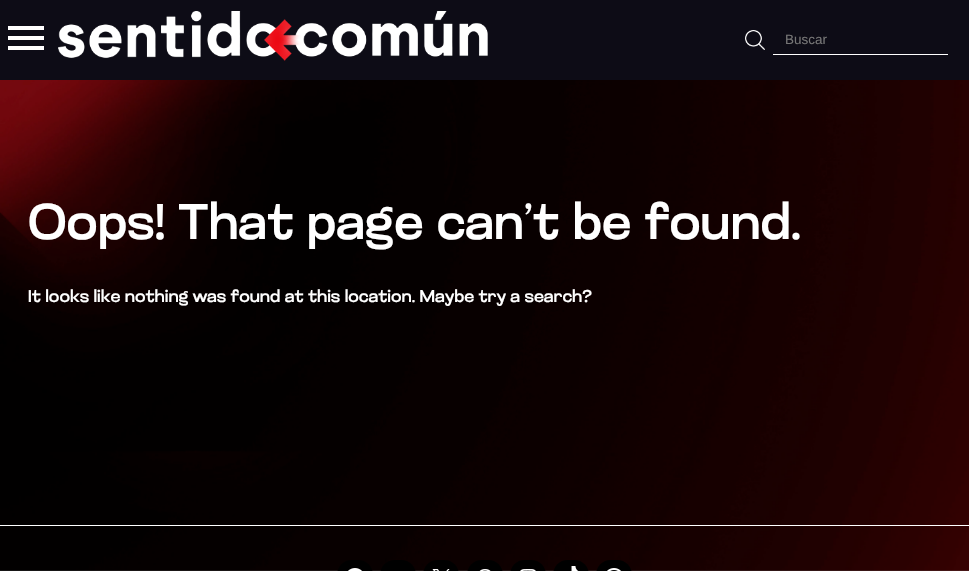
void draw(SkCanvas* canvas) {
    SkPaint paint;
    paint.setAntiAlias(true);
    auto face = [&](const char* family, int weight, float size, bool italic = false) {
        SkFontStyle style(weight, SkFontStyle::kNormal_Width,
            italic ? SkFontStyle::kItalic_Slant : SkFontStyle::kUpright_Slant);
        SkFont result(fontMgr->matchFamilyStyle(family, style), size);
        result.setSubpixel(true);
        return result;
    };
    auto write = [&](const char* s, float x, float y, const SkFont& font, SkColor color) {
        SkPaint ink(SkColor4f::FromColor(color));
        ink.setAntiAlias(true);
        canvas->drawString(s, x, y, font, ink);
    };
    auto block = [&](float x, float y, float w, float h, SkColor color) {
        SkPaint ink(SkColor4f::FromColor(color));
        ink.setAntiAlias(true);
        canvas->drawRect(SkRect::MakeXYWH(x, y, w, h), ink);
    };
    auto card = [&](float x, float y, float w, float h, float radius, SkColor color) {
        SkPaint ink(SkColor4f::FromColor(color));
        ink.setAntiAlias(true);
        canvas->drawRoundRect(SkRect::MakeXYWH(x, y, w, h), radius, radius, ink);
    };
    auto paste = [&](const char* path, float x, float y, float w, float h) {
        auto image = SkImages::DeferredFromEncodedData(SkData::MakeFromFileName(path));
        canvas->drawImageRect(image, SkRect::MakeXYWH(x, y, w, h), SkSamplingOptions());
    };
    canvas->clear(SK_ColorWHITE);
    block(0, 0, 969, 80, SkColorSetRGB(13, 12, 22));
    block(8, 36, 36, 4, SK_ColorWHITE);
    block(8, 26, 36, 4, SK_ColorWHITE);
    block(8, 46, 36, 4, SK_ColorWHITE);
    paste("pic1.png", 58, 10, 430, 51);
    paste("pic2.png", 745, 30, 20, 20);
    block(773, 54, 175, 1, SK_ColorWHITE);
    auto kFont1 = face("Liberation Sans", 400, 13.5f);
    write("Buscar", 785, 44, kFont1, SkColorSetRGB(117, 117, 117));
    paste("pic9.png", 0, 80, 969, 491);
    auto kFont2 = face("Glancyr", 400, 50.1f);
    write("Oops! That page can’t be found.", 28, 239, kFont2, SK_ColorWHITE);
    auto kFont3 = face("Glancyr", 400, 17);
    write("It looks like nothing was found at this location. Maybe try a search?", 28, 302, kFont3, SK_ColorWHITE);
    block(0, 525, 969, 1, SK_ColorWHITE);
    card(337, 560, 36, 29, 18, SK_ColorBLACK);
    paste("pic3.png", 348, 568, 14, 3);
    card(380, 560, 36, 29, 18, SK_ColorBLACK);
    card(423, 560, 36, 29, 18, SK_ColorBLACK);
    paste("pic4.png", 432, 569, 18, 2);
    card(467, 560, 36, 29, 18, SK_ColorBLACK);
    paste("pic5.png", 479, 569, 12, 2);
    card(510, 560, 36, 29, 18, SK_ColorBLACK);
    paste("pic6.png", 520, 569, 16, 2);
    card(553, 560, 36, 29, 18, SK_ColorBLACK);
    paste("pic7.png", 571, 566, 8, 5);
    card(596, 560, 36, 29, 18, SK_ColorBLACK);
    paste("pic8.png", 607, 568, 14, 3);
}
